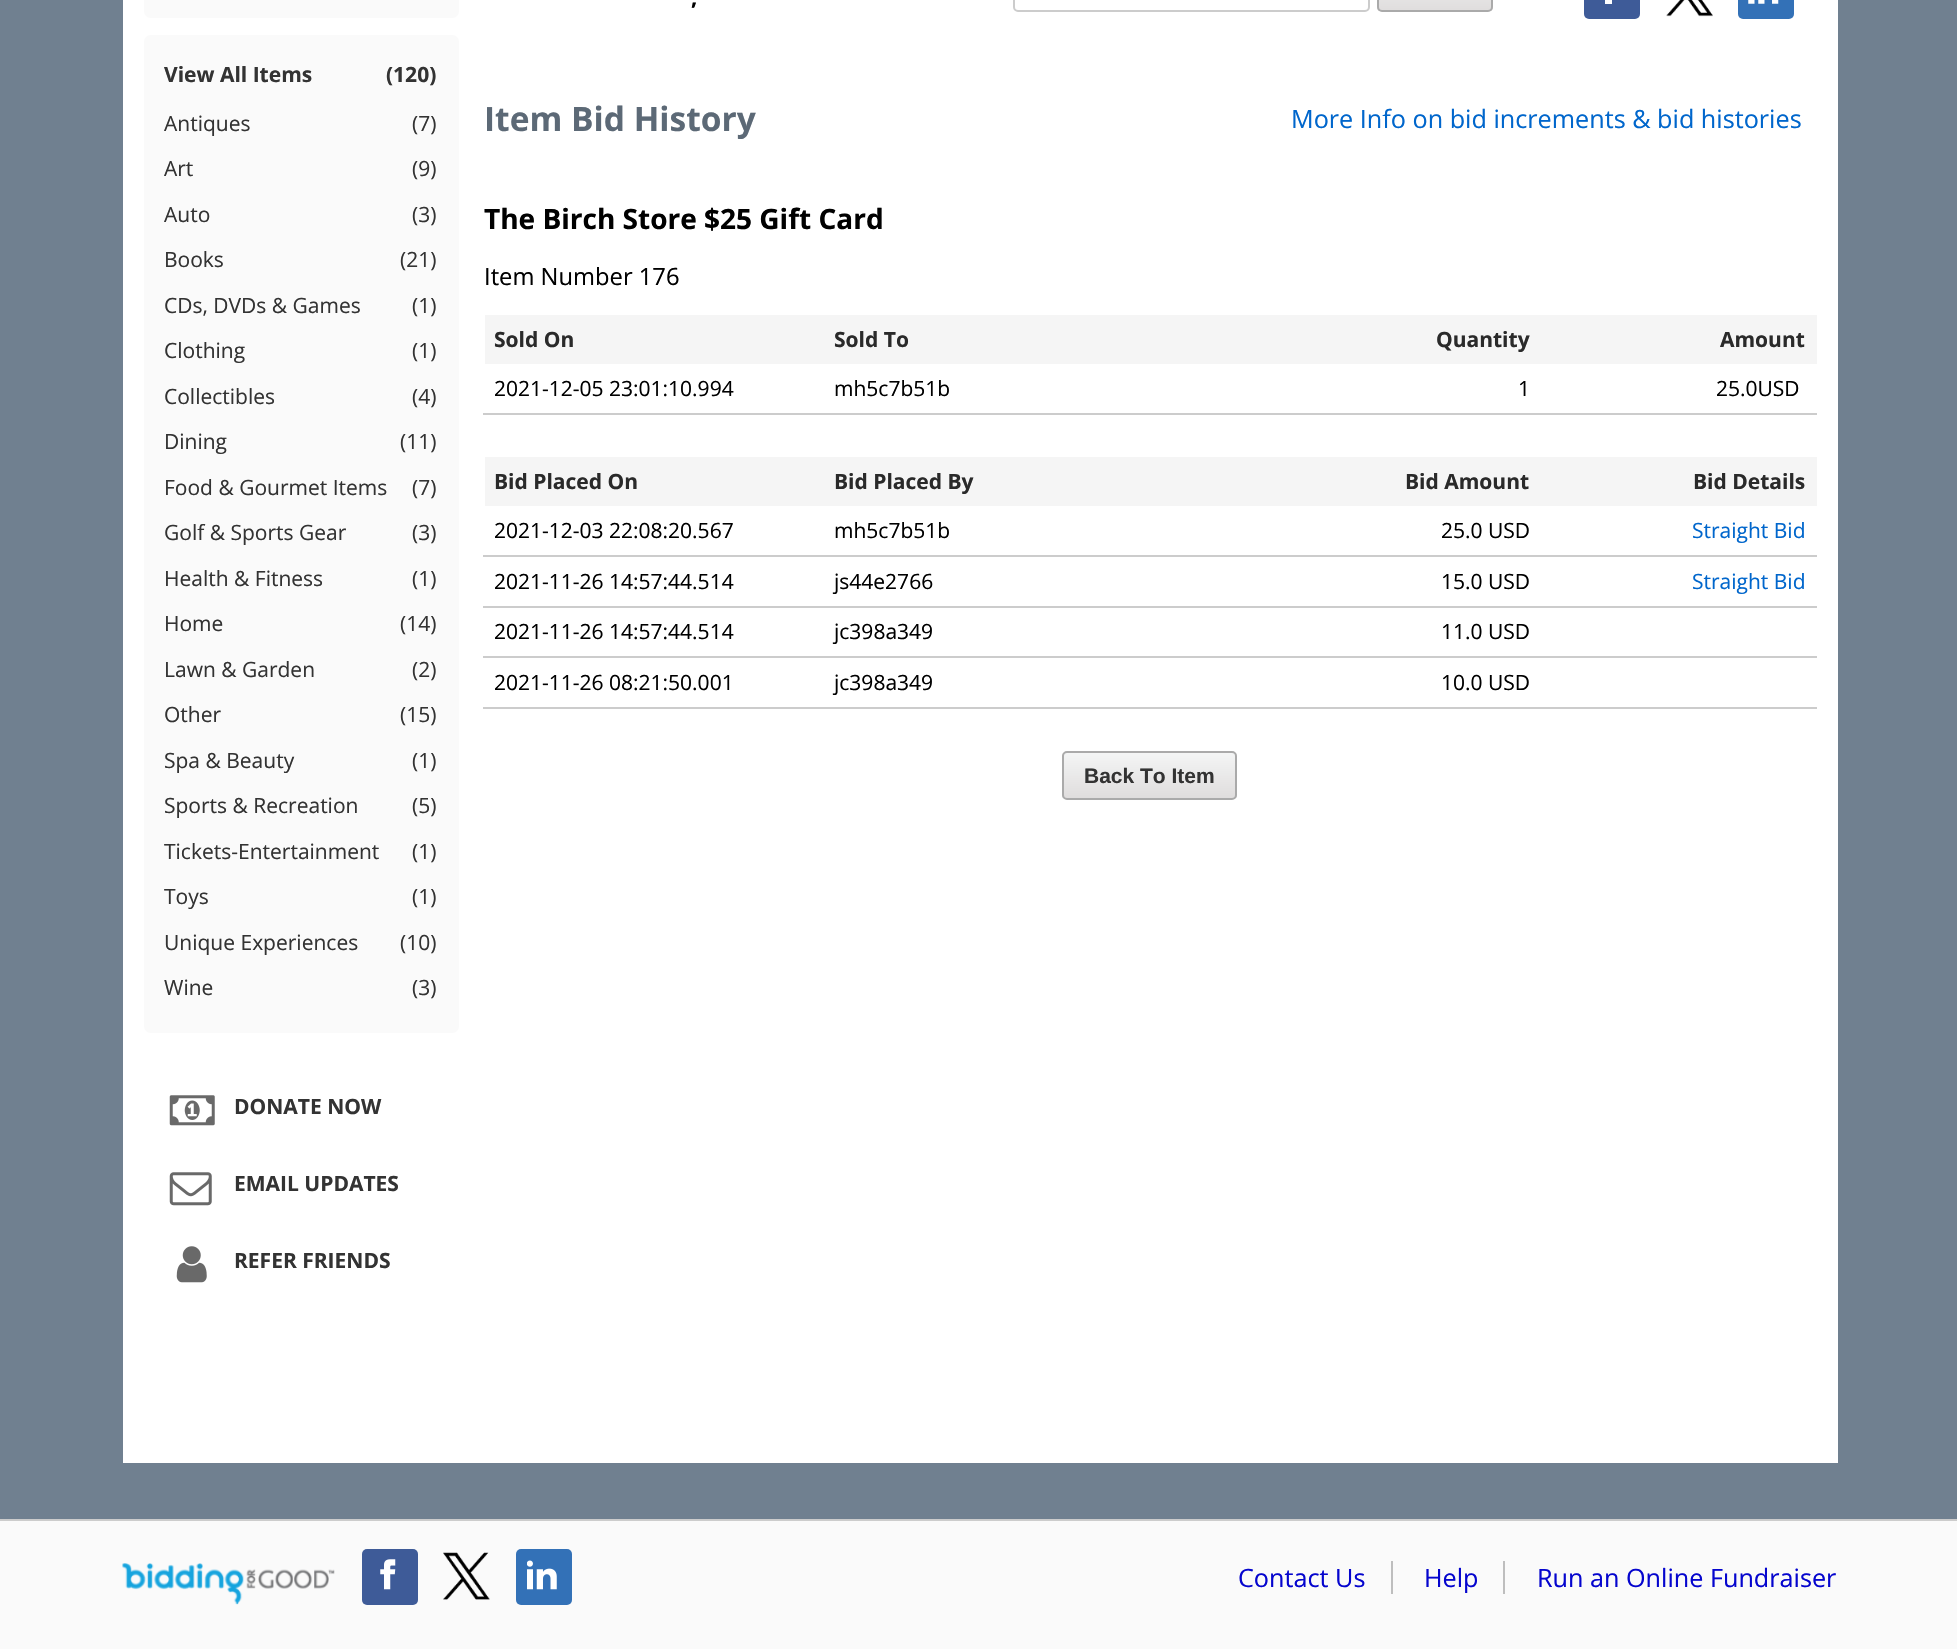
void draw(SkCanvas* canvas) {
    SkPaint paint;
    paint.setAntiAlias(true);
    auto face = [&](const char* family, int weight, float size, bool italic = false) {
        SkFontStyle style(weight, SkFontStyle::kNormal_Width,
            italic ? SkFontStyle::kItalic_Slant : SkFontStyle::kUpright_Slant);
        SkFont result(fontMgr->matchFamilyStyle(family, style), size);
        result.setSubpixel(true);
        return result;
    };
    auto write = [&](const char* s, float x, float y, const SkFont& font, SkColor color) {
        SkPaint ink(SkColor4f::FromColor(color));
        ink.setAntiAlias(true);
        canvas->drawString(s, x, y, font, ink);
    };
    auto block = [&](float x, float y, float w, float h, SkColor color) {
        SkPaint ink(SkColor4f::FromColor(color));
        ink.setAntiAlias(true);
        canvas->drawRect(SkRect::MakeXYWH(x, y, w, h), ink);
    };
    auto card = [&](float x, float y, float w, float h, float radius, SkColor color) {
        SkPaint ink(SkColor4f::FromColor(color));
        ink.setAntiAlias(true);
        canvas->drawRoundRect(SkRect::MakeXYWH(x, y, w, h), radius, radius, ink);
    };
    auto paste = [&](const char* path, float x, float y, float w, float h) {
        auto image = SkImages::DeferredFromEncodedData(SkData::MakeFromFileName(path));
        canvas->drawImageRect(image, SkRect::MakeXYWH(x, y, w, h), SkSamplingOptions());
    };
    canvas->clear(SkColorSetRGB(112, 128, 144));
    block(123, 0, 1715, 1463, SK_ColorWHITE);
    card(144, -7, 315, 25, 7, SkColorSetRGB(250, 250, 250));
    card(144, 35, 315, 998, 7, SkColorSetRGB(250, 250, 250));
    auto kFont1 = face("Open Sans", 700, 21);
    write("View All Items", 164, 82, kFont1, SkColorSetRGB(51, 51, 51));
    write("(120)", 386, 82, kFont1, SkColorSetRGB(51, 51, 51));
    auto kFont2 = face("Open Sans", 400, 21);
    write("Antiques", 164, 131, kFont2, SkColorSetRGB(51, 51, 51));
    write("(7)", 412, 131, kFont2, SkColorSetRGB(51, 51, 51));
    write("Art", 164, 176, kFont2, SkColorSetRGB(51, 51, 51));
    write("(9)", 412, 176, kFont2, SkColorSetRGB(51, 51, 51));
    write("Auto", 164, 222, kFont2, SkColorSetRGB(51, 51, 51));
    write("(3)", 412, 222, kFont2, SkColorSetRGB(51, 51, 51));
    write("Books", 164, 267, kFont2, SkColorSetRGB(51, 51, 51));
    write("(21)", 400, 267, kFont2, SkColorSetRGB(51, 51, 51));
    write("CDs, DVDs & Games", 164, 313, kFont2, SkColorSetRGB(51, 51, 51));
    write("(1)", 412, 313, kFont2, SkColorSetRGB(51, 51, 51));
    write("Clothing", 164, 358, kFont2, SkColorSetRGB(51, 51, 51));
    write("(1)", 412, 358, kFont2, SkColorSetRGB(51, 51, 51));
    write("Collectibles", 164, 404, kFont2, SkColorSetRGB(51, 51, 51));
    write("(4)", 412, 404, kFont2, SkColorSetRGB(51, 51, 51));
    write("Dining", 164, 449, kFont2, SkColorSetRGB(51, 51, 51));
    write("(11)", 400, 449, kFont2, SkColorSetRGB(51, 51, 51));
    write("Food & Gourmet Items", 164, 495, kFont2, SkColorSetRGB(51, 51, 51));
    write("(7)", 412, 495, kFont2, SkColorSetRGB(51, 51, 51));
    write("Golf & Sports Gear", 164, 540, kFont2, SkColorSetRGB(51, 51, 51));
    write("(3)", 412, 540, kFont2, SkColorSetRGB(51, 51, 51));
    write("Health & Fitness", 164, 586, kFont2, SkColorSetRGB(51, 51, 51));
    write("(1)", 412, 586, kFont2, SkColorSetRGB(51, 51, 51));
    write("Home", 164, 631, kFont2, SkColorSetRGB(51, 51, 51));
    write("(14)", 400, 631, kFont2, SkColorSetRGB(51, 51, 51));
    write("Lawn & Garden", 164, 677, kFont2, SkColorSetRGB(51, 51, 51));
    write("(2)", 412, 677, kFont2, SkColorSetRGB(51, 51, 51));
    write("Other", 164, 722, kFont2, SkColorSetRGB(51, 51, 51));
    write("(15)", 400, 722, kFont2, SkColorSetRGB(51, 51, 51));
    write("Spa & Beauty", 164, 768, kFont2, SkColorSetRGB(51, 51, 51));
    write("(1)", 412, 768, kFont2, SkColorSetRGB(51, 51, 51));
    write("Sports & Recreation", 164, 813, kFont2, SkColorSetRGB(51, 51, 51));
    write("(5)", 412, 813, kFont2, SkColorSetRGB(51, 51, 51));
    write("Tickets-Entertainment", 164, 859, kFont2, SkColorSetRGB(51, 51, 51));
    write("(1)", 412, 859, kFont2, SkColorSetRGB(51, 51, 51));
    write("Toys", 164, 904, kFont2, SkColorSetRGB(51, 51, 51));
    write("(1)", 412, 904, kFont2, SkColorSetRGB(51, 51, 51));
    write("Unique Experiences", 164, 950, kFont2, SkColorSetRGB(51, 51, 51));
    write("(10)", 400, 950, kFont2, SkColorSetRGB(51, 51, 51));
    write("Wine", 164, 995, kFont2, SkColorSetRGB(51, 51, 51));
    write("(3)", 412, 995, kFont2, SkColorSetRGB(51, 51, 51));
    paste("pic1.png", 169, 1095, 46, 31);
    write("DONATE NOW", 234, 1114, kFont1, SkColorSetRGB(51, 51, 51));
    paste("pic2.png", 169, 1172, 43, 34);
    write("EMAIL UPDATES", 234, 1191, kFont1, SkColorSetRGB(51, 51, 51));
    paste("pic3.png", 176, 1246, 31, 37);
    write("REFER FRIENDS", 234, 1268, kFont1, SkColorSetRGB(51, 51, 51));
    auto kFont3 = face("Open Sans", 700, 22);
    write(",", 691, 5, kFont3, SK_ColorBLACK);
    paint.setStyle(SkPaint::kStroke_Style);
    paint.setStrokeWidth(2);
    paint.setColor(SkColorSetRGB(204, 204, 204));
    canvas->drawRoundRect(SkRect::MakeXYWH(1014, -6, 355, 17), 4, 4, paint);
    canvas->save();
    canvas->clipPath(SkPathBuilder().moveTo(1382, -37).lineTo(1488, -37).cubicTo(1491, -37, 1493, -35, 1493, -32).lineTo(1493, 7).cubicTo(1493, 10, 1491, 12, 1488, 12).lineTo(1382, 12).cubicTo(1379, 12, 1377, 10, 1377, 7).lineTo(1377, -32).cubicTo(1377, -35, 1379, -37, 1382, -37).close().detach(), true);
    paint.setStyle(SkPaint::kFill_Style);
    {
        const SkColor colors[] = {SkColorSetRGB(244, 245, 245), SkColorSetRGB(223, 221, 221)};
        const float stops[] = {0, 1};
        const SkPoint ends[] = {{1435, -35}, {1435, 11}};
        paint.setShader(SkGradientShader::MakeLinear(ends, colors, stops, 2, SkTileMode::kClamp));
        paint.setAlpha(255);
    }
    canvas->drawRect(SkRect::MakeXYWH(1377, 0, 116, 11), paint);
    canvas->restore();
    paint.setStyle(SkPaint::kStroke_Style);
    paint.setShader(nullptr);
    paint.setColor(SkColorSetRGB(170, 170, 170));
    canvas->drawRoundRect(SkRect::MakeXYWH(1378, -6, 114, 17), 4, 4, paint);
    card(1584, -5, 56, 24, 5, SkColorSetRGB(62, 91, 152));
    block(1605, 0, 7, 4, SK_ColorWHITE);
    paste("pic4.png", 1666, 0, 47, 17);
    card(1738, -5, 56, 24, 5, SkColorSetRGB(51, 113, 183));
    paste("pic5.png", 1748, 0, 31, 4);
    auto kFont4 = face("Open Sans", 700, 33.5f);
    write("Item Bid History", 484, 131, kFont4, SkColorSetRGB(92, 105, 118));
    auto kFont5 = face("Open Sans", 400, 25.2f);
    write("More Info on bid increments & bid histories", 1291, 128, kFont5, SkColorSetRGB(0, 102, 204));
    auto kFont6 = face("Open Sans", 700, 28);
    write("The Birch Store $25 Gift Card", 484, 229, kFont6, SK_ColorBLACK);
    auto kFont7 = face("Open Sans", 400, 23.75f);
    write("Item Number 176", 484, 285, kFont7, SK_ColorBLACK);
    block(485, 315, 1332, 49, SkColorSetRGB(245, 245, 245));
    write("Sold On", 494, 347, kFont1, SkColorSetRGB(42, 42, 42));
    write("Sold To", 834, 347, kFont1, SkColorSetRGB(42, 42, 42));
    write("Quantity", 1436, 347, kFont1, SkColorSetRGB(42, 42, 42));
    write("Amount", 1720, 347, kFont1, SkColorSetRGB(42, 42, 42));
    block(483, 413, 1334, 2, SkColorSetRGB(204, 204, 204));
    write("2021-12-05 23:01:10.994", 494, 396, kFont2, SK_ColorBLACK);
    write("mh5c7b51b", 834, 396, kFont2, SK_ColorBLACK);
    write("1", 1518, 396, kFont2, SK_ColorBLACK);
    write("25.0USD", 1716, 396, kFont2, SK_ColorBLACK);
    block(485, 457, 1332, 49, SkColorSetRGB(245, 245, 245));
    write("Bid Placed On", 494, 489, kFont1, SkColorSetRGB(42, 42, 42));
    write("Bid Placed By", 834, 489, kFont1, SkColorSetRGB(42, 42, 42));
    write("Bid Amount", 1405, 489, kFont1, SkColorSetRGB(42, 42, 42));
    write("Bid Details", 1693, 489, kFont1, SkColorSetRGB(42, 42, 42));
    block(483, 555, 1334, 2, SkColorSetRGB(204, 204, 204));
    write("2021-12-03 22:08:20.567", 494, 538, kFont2, SK_ColorBLACK);
    write("mh5c7b51b", 834, 538, kFont2, SK_ColorBLACK);
    write("25.0 USD", 1441, 538, kFont2, SK_ColorBLACK);
    write("Straight Bid", 1692, 538, kFont2, SkColorSetRGB(0, 102, 204));
    block(483, 606, 1334, 2, SkColorSetRGB(204, 204, 204));
    write("2021-11-26 14:57:44.514", 494, 589, kFont2, SK_ColorBLACK);
    write("js44e2766", 834, 589, kFont2, SK_ColorBLACK);
    write("15.0 USD", 1441, 589, kFont2, SK_ColorBLACK);
    write("Straight Bid", 1692, 589, kFont2, SkColorSetRGB(0, 102, 204));
    block(483, 656, 1334, 2, SkColorSetRGB(204, 204, 204));
    write("2021-11-26 14:57:44.514", 494, 639, kFont2, SK_ColorBLACK);
    write("jc398a349", 834, 639, kFont2, SK_ColorBLACK);
    write("11.0 USD", 1441, 639, kFont2, SK_ColorBLACK);
    block(483, 707, 1334, 2, SkColorSetRGB(204, 204, 204));
    write("2021-11-26 08:21:50.001", 494, 690, kFont2, SK_ColorBLACK);
    write("jc398a349", 834, 690, kFont2, SK_ColorBLACK);
    write("10.0 USD", 1441, 690, kFont2, SK_ColorBLACK);
    canvas->save();
    canvas->clipPath(SkPathBuilder().moveTo(1067, 751).lineTo(1232, 751).cubicTo(1235, 751, 1237, 753, 1237, 756).lineTo(1237, 795).cubicTo(1237, 798, 1235, 800, 1232, 800).lineTo(1067, 800).cubicTo(1064, 800, 1062, 798, 1062, 795).lineTo(1062, 756).cubicTo(1062, 753, 1064, 751, 1067, 751).close().detach(), true);
    paint.setStyle(SkPaint::kFill_Style);
    {
        const SkColor colors[] = {SkColorSetRGB(244, 245, 245), SkColorSetRGB(223, 221, 221)};
        const float stops[] = {0, 1};
        const SkPoint ends[] = {{1150, 753}, {1150, 798}};
        paint.setShader(SkGradientShader::MakeLinear(ends, colors, stops, 2, SkTileMode::kClamp));
        paint.setAlpha(255);
    }
    canvas->drawRect(SkRect::MakeXYWH(1062, 753, 175, 45), paint);
    canvas->restore();
    paint.setStyle(SkPaint::kStroke_Style);
    paint.setShader(nullptr);
    paint.setColor(SkColorSetRGB(170, 170, 170));
    canvas->drawRoundRect(SkRect::MakeXYWH(1063, 752, 173, 47), 4, 4, paint);
    auto kFont8 = face("Liberation Sans", 700, 21);
    write("Back To Item", 1084, 783, kFont8, SkColorSetRGB(51, 51, 51));
    block(0, 1521, 1957, 128, SkColorSetRGB(250, 250, 250));
    block(0, 1519, 1957, 2, SkColorSetRGB(204, 204, 204));
    paste("pic6.png", 122, 1563, 213, 42);
    card(362, 1549, 56, 56, 5, SkColorSetRGB(62, 91, 152));
    paste("pic7.png", 380, 1559, 16, 31);
    paste("pic8.png", 443, 1552, 47, 48);
    card(516, 1549, 56, 56, 5, SkColorSetRGB(51, 113, 183));
    paste("pic9.png", 527, 1560, 30, 30);
    block(1391, 1561, 2, 33, SkColorSetRGB(190, 190, 190));
    write("Contact Us", 1238, 1587, kFont5, SkColorSetRGB(5, 5, 206));
    block(1503, 1561, 2, 33, SkColorSetRGB(190, 190, 190));
    write("Help", 1424, 1587, kFont5, SkColorSetRGB(5, 5, 206));
    write("Run an Online Fundraiser", 1537, 1587, kFont5, SkColorSetRGB(5, 5, 206));
}
